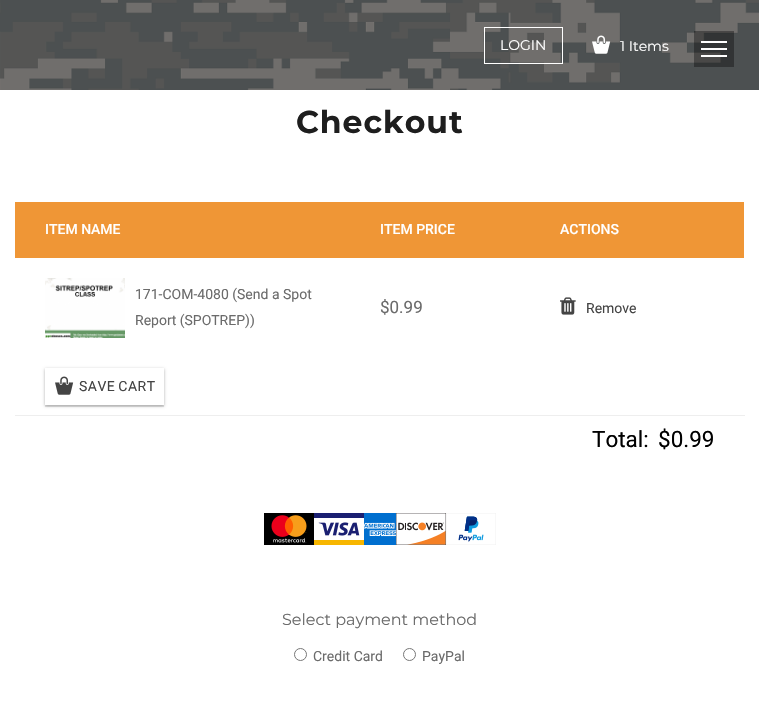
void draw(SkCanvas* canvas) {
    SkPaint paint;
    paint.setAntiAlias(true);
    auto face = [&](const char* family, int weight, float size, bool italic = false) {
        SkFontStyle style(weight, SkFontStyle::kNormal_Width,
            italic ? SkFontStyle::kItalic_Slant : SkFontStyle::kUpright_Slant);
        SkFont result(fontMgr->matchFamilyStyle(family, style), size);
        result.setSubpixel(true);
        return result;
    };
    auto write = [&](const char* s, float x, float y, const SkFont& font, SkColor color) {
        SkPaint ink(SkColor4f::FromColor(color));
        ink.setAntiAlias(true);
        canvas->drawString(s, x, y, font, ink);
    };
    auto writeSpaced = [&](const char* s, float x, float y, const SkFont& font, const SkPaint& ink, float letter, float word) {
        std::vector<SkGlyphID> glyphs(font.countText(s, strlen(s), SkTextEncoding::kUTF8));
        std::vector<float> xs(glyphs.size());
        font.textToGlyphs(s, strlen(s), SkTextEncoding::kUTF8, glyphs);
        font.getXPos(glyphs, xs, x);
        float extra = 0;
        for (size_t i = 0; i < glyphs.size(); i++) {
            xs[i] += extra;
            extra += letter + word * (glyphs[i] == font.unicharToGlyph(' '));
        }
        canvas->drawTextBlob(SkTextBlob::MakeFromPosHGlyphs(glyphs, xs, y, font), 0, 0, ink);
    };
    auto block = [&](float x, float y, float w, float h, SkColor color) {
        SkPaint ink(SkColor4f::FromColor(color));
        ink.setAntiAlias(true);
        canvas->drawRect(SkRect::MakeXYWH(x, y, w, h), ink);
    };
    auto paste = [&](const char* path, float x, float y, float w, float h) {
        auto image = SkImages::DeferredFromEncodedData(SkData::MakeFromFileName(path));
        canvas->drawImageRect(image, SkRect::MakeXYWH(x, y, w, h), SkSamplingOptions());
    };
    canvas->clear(SK_ColorWHITE);
    paste("pic1.png", 0, 0, 759, 90);
    paint.setStyle(SkPaint::kStroke_Style);
    paint.setStrokeWidth(1);
    paint.setColor(SK_ColorWHITE);
    canvas->drawRect(SkRect::MakeXYWH(484.5f, 27.5f, 78, 36), paint);
    auto kFont1 = face("Montserrat", 400, 14);
    write("LOGIN", 500, 50, kFont1, SK_ColorWHITE);
    paste("pic2.png", 592, 35, 19, 19);
    write("1 Items", 620, 51, kFont1, SK_ColorWHITE);
    block(694, 31, 40, 36, SkColorSetARGB(89, 0, 0, 0));
    block(701, 41, 26, 2, SK_ColorWHITE);
    block(701, 48, 26, 2, SK_ColorWHITE);
    block(701, 55, 26, 2, SK_ColorWHITE);
    auto kFont2 = face("Montserrat", 700, 31.5f);
    paint.setStyle(SkPaint::kFill_Style);
    paint.setColor(SkColorSetRGB(30, 30, 30));
    writeSpaced("Checkout", 296, 133, kFont2, paint, 1, 0);
    block(15, 202, 729, 56, SkColorSetRGB(239, 150, 54));
    auto kFont3 = face("Roboto", 500, 14);
    write("ITEM NAME", 45, 234, kFont3, SK_ColorWHITE);
    write("ITEM PRICE", 380, 234, kFont3, SK_ColorWHITE);
    write("ACTIONS", 560, 234, kFont3, SK_ColorWHITE);
    paste("pic3.png", 45, 278, 80, 60);
    auto kFont4 = face("Roboto", 400, 14);
    write("171-COM-4080 (Send a Spot", 135, 299, kFont4, SkColorSetRGB(107, 107, 107));
    write("Report (SPOTREP))", 135, 325, kFont4, SkColorSetRGB(107, 107, 107));
    auto kFont5 = face("Roboto", 400, 17);
    write("$0.99", 380, 313, kFont5, SkColorSetRGB(107, 107, 107));
    paste("pic4.png", 560, 297, 16, 18);
    write("Remove", 586, 313, kFont4, SkColorSetRGB(68, 68, 68));
    canvas->save();
    canvas->clipPath(SkPathBuilder(SkPathFillType::kEvenOdd).moveTo(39, 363).lineTo(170, 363).lineTo(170, 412).lineTo(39, 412).close().moveTo(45, 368).lineTo(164, 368).lineTo(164, 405).lineTo(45, 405).close().detach(), true);
    paint.setColor(SkColorSetARGB(77, 0, 0, 0));
    paint.setMaskFilter(SkMaskFilter::MakeBlur(kNormal_SkBlurStyle, 1.5f));
    canvas->drawRect(SkRect::MakeXYWH(45, 369, 119, 37), paint);
    paint.setMaskFilter(nullptr);
    canvas->restore();
    canvas->save();
    canvas->clipRect(SkRect::MakeXYWH(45, 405, 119, 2));
    paint.setColor(SkColorSetARGB(26, 0, 0, 0));
    paint.setMaskFilter(SkMaskFilter::MakeBlur(kNormal_SkBlurStyle, 0.5f));
    canvas->drawRect(SkRect::MakeXYWH(45, 370, 119, 37), paint);
    paint.setMaskFilter(nullptr);
    canvas->restore();
    paste("pic5.png", 55, 376, 19, 19);
    paint.setColor(SkColorSetRGB(68, 68, 68));
    writeSpaced("SAVE CART", 79, 391, kFont4, paint, 0.5f, -1);
    block(15, 415, 730, 1, SkColorSetRGB(238, 238, 238));
    auto kFont6 = face("Roboto", 400, 22.5f);
    write("Total:", 592, 447, kFont6, SK_ColorBLACK);
    write("$0.99", 658, 447, kFont6, SK_ColorBLACK);
    paste("pic6.png", 264, 513, 50, 32);
    paste("pic7.png", 314, 513, 50, 32);
    paste("pic8.png", 364, 513, 32, 32);
    paste("pic9.png", 396, 513, 50, 32);
    paste("pic10.png", 446, 513, 50, 32);
    auto kFont7 = face("Montserrat", 400, 16);
    write("Select payment method", 282, 625, kFont7, SkColorSetRGB(107, 107, 107));
    paint.setStyle(SkPaint::kStroke_Style);
    paint.setColor(SkColorSetRGB(118, 118, 118));
    canvas->drawCircle(300.5f, 654.5f, 6, paint);
    write("Credit Card", 313, 661, kFont4, SkColorSetRGB(107, 107, 107));
    canvas->drawCircle(409.5f, 654.5f, 6, paint);
    write("PayPal", 422, 661, kFont4, SkColorSetRGB(107, 107, 107));
}
